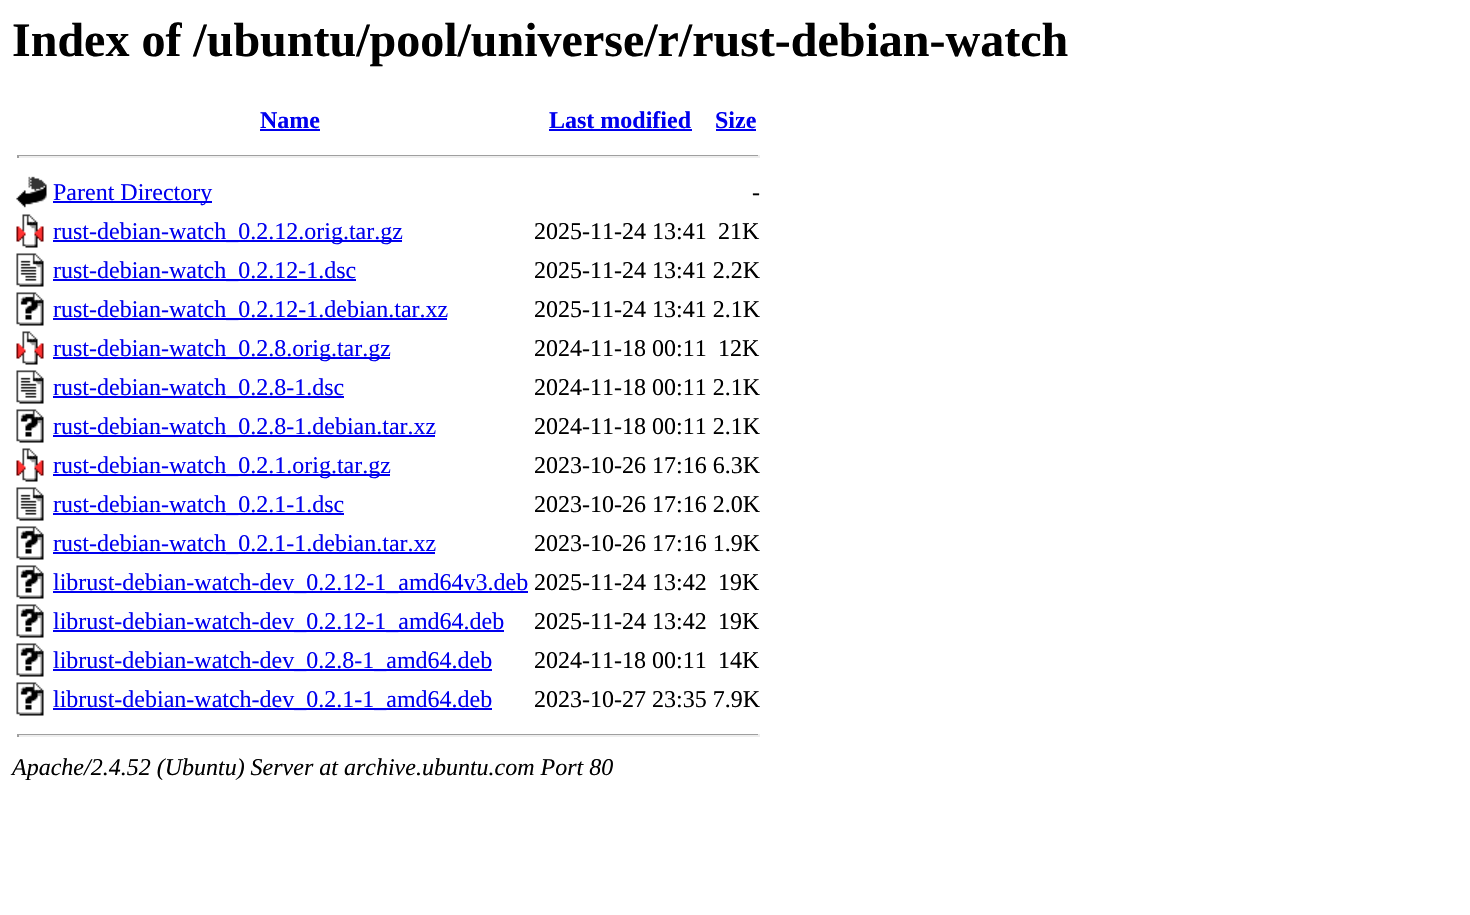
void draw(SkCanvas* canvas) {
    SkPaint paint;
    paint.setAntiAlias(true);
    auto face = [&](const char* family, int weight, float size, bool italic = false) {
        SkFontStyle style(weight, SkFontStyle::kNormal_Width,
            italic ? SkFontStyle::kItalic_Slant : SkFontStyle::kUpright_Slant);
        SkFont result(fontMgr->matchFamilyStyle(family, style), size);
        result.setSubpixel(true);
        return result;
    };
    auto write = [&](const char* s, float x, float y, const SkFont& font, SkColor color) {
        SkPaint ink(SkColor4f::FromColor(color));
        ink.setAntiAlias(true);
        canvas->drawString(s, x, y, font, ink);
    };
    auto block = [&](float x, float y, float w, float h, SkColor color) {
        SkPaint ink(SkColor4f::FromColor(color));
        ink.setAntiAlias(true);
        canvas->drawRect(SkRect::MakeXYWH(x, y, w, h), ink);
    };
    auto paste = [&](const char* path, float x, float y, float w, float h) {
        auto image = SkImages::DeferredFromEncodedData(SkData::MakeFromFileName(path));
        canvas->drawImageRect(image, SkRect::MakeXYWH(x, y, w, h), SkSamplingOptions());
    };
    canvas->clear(SK_ColorWHITE);
    auto kFont1 = face("Liberation Serif", 700, 48);
    write("Index of /ubuntu/pool/universe/r/rust-debian-watch", 12, 56, kFont1, SK_ColorBLACK);
    auto kFont2 = face("Liberation Serif", 700, 24);
    write("Name", 260, 128, kFont2, SkColorSetRGB(0, 0, 238));
    block(260, 129, 60, 2, SkColorSetRGB(0, 0, 238));
    write("Last modified", 549, 128, kFont2, SkColorSetRGB(0, 0, 238));
    block(549, 129, 143, 2, SkColorSetRGB(0, 0, 238));
    write("Size", 715, 128, kFont2, SkColorSetRGB(0, 0, 238));
    block(716, 129, 40, 2, SkColorSetRGB(0, 0, 238));
    block(17, 155, 742, 1, SkColorSetRGB(159, 159, 159));
    block(758, 155, 2, 3, SkColorSetRGB(238, 238, 238));
    block(17, 156, 742, 2, SkColorSetRGB(238, 238, 238));
    block(17, 155, 2, 3, SkColorSetRGB(159, 159, 159));
    paste("pic1.png", 16, 176, 31, 32);
    block(53, 201, 159, 2, SkColorSetRGB(0, 0, 238));
    auto kFont3 = face("Liberation Serif", 400, 24);
    write("Parent Directory", 53, 200, kFont3, SkColorSetRGB(0, 0, 238));
    write("-", 752, 200, kFont3, SK_ColorBLACK);
    paste("pic2.png", 16, 214, 28, 34);
    block(53, 240, 349, 2, SkColorSetRGB(0, 0, 238));
    write("rust-debian-watch_0.2.12.orig.tar.gz", 53, 239, kFont3, SkColorSetRGB(0, 0, 238));
    write("2025-11-24 13:41", 534, 239, kFont3, SK_ColorBLACK);
    write("21K", 718, 239, kFont3, SK_ColorBLACK);
    paste("pic3.png", 16, 253, 28, 34);
    block(53, 279, 303, 2, SkColorSetRGB(0, 0, 238));
    write("rust-debian-watch_0.2.12-1.dsc", 53, 278, kFont3, SkColorSetRGB(0, 0, 238));
    write("2025-11-24 13:41 2.2K", 534, 278, kFont3, SK_ColorBLACK);
    paste("pic4.png", 16, 292, 28, 34);
    block(53, 318, 394, 2, SkColorSetRGB(0, 0, 238));
    write("rust-debian-watch_0.2.12-1.debian.tar.xz", 53, 317, kFont3, SkColorSetRGB(0, 0, 238));
    write("2025-11-24 13:41 2.1K", 534, 317, kFont3, SK_ColorBLACK);
    paste("pic2.png", 16, 331, 28, 34);
    block(53, 357, 337, 2, SkColorSetRGB(0, 0, 238));
    write("rust-debian-watch_0.2.8.orig.tar.gz", 53, 356, kFont3, SkColorSetRGB(0, 0, 238));
    write("2024-11-18 00:11", 534, 356, kFont3, SK_ColorBLACK);
    write("12K", 718, 356, kFont3, SK_ColorBLACK);
    paste("pic3.png", 16, 370, 28, 34);
    block(53, 396, 291, 2, SkColorSetRGB(0, 0, 238));
    write("rust-debian-watch_0.2.8-1.dsc", 53, 395, kFont3, SkColorSetRGB(0, 0, 238));
    write("2024-11-18 00:11 2.1K", 534, 395, kFont3, SK_ColorBLACK);
    paste("pic4.png", 16, 409, 28, 34);
    block(53, 435, 382, 2, SkColorSetRGB(0, 0, 238));
    write("rust-debian-watch_0.2.8-1.debian.tar.xz", 53, 434, kFont3, SkColorSetRGB(0, 0, 238));
    write("2024-11-18 00:11 2.1K", 534, 434, kFont3, SK_ColorBLACK);
    paste("pic2.png", 16, 448, 28, 34);
    block(53, 474, 337, 2, SkColorSetRGB(0, 0, 238));
    write("rust-debian-watch_0.2.1.orig.tar.gz", 53, 473, kFont3, SkColorSetRGB(0, 0, 238));
    write("2023-10-26 17:16 6.3K", 534, 473, kFont3, SK_ColorBLACK);
    paste("pic3.png", 16, 487, 28, 34);
    block(53, 513, 291, 2, SkColorSetRGB(0, 0, 238));
    write("rust-debian-watch_0.2.1-1.dsc", 53, 512, kFont3, SkColorSetRGB(0, 0, 238));
    write("2023-10-26 17:16 2.0K", 534, 512, kFont3, SK_ColorBLACK);
    paste("pic4.png", 16, 526, 28, 34);
    block(53, 552, 382, 2, SkColorSetRGB(0, 0, 238));
    write("rust-debian-watch_0.2.1-1.debian.tar.xz", 53, 551, kFont3, SkColorSetRGB(0, 0, 238));
    write("2023-10-26 17:16 1.9K", 534, 551, kFont3, SK_ColorBLACK);
    paste("pic4.png", 16, 565, 28, 34);
    block(53, 591, 475, 2, SkColorSetRGB(0, 0, 238));
    write("librust-debian-watch-dev_0.2.12-1_amd64v3.deb", 53, 590, kFont3, SkColorSetRGB(0, 0, 238));
    write("2025-11-24 13:42", 534, 590, kFont3, SK_ColorBLACK);
    write("19K", 718, 590, kFont3, SK_ColorBLACK);
    paste("pic4.png", 16, 604, 28, 34);
    block(53, 630, 451, 2, SkColorSetRGB(0, 0, 238));
    write("librust-debian-watch-dev_0.2.12-1_amd64.deb", 53, 629, kFont3, SkColorSetRGB(0, 0, 238));
    write("2025-11-24 13:42", 534, 629, kFont3, SK_ColorBLACK);
    write("19K", 718, 629, kFont3, SK_ColorBLACK);
    paste("pic4.png", 16, 643, 28, 34);
    block(53, 669, 439, 2, SkColorSetRGB(0, 0, 238));
    write("librust-debian-watch-dev_0.2.8-1_amd64.deb", 53, 668, kFont3, SkColorSetRGB(0, 0, 238));
    write("2024-11-18 00:11", 534, 668, kFont3, SK_ColorBLACK);
    write("14K", 718, 668, kFont3, SK_ColorBLACK);
    paste("pic4.png", 16, 682, 28, 34);
    block(53, 708, 439, 2, SkColorSetRGB(0, 0, 238));
    write("librust-debian-watch-dev_0.2.1-1_amd64.deb", 53, 707, kFont3, SkColorSetRGB(0, 0, 238));
    write("2023-10-27 23:35 7.9K", 534, 707, kFont3, SK_ColorBLACK);
    block(17, 734, 742, 1, SkColorSetRGB(159, 159, 159));
    block(758, 734, 2, 3, SkColorSetRGB(238, 238, 238));
    block(17, 735, 742, 2, SkColorSetRGB(238, 238, 238));
    block(17, 734, 2, 3, SkColorSetRGB(159, 159, 159));
    auto kFont4 = face("Liberation Serif", 400, 24, true);
    write("Apache/2.4.52 (Ubuntu) Server at archive.ubuntu.com Port 80", 12, 775, kFont4, SK_ColorBLACK);
}
